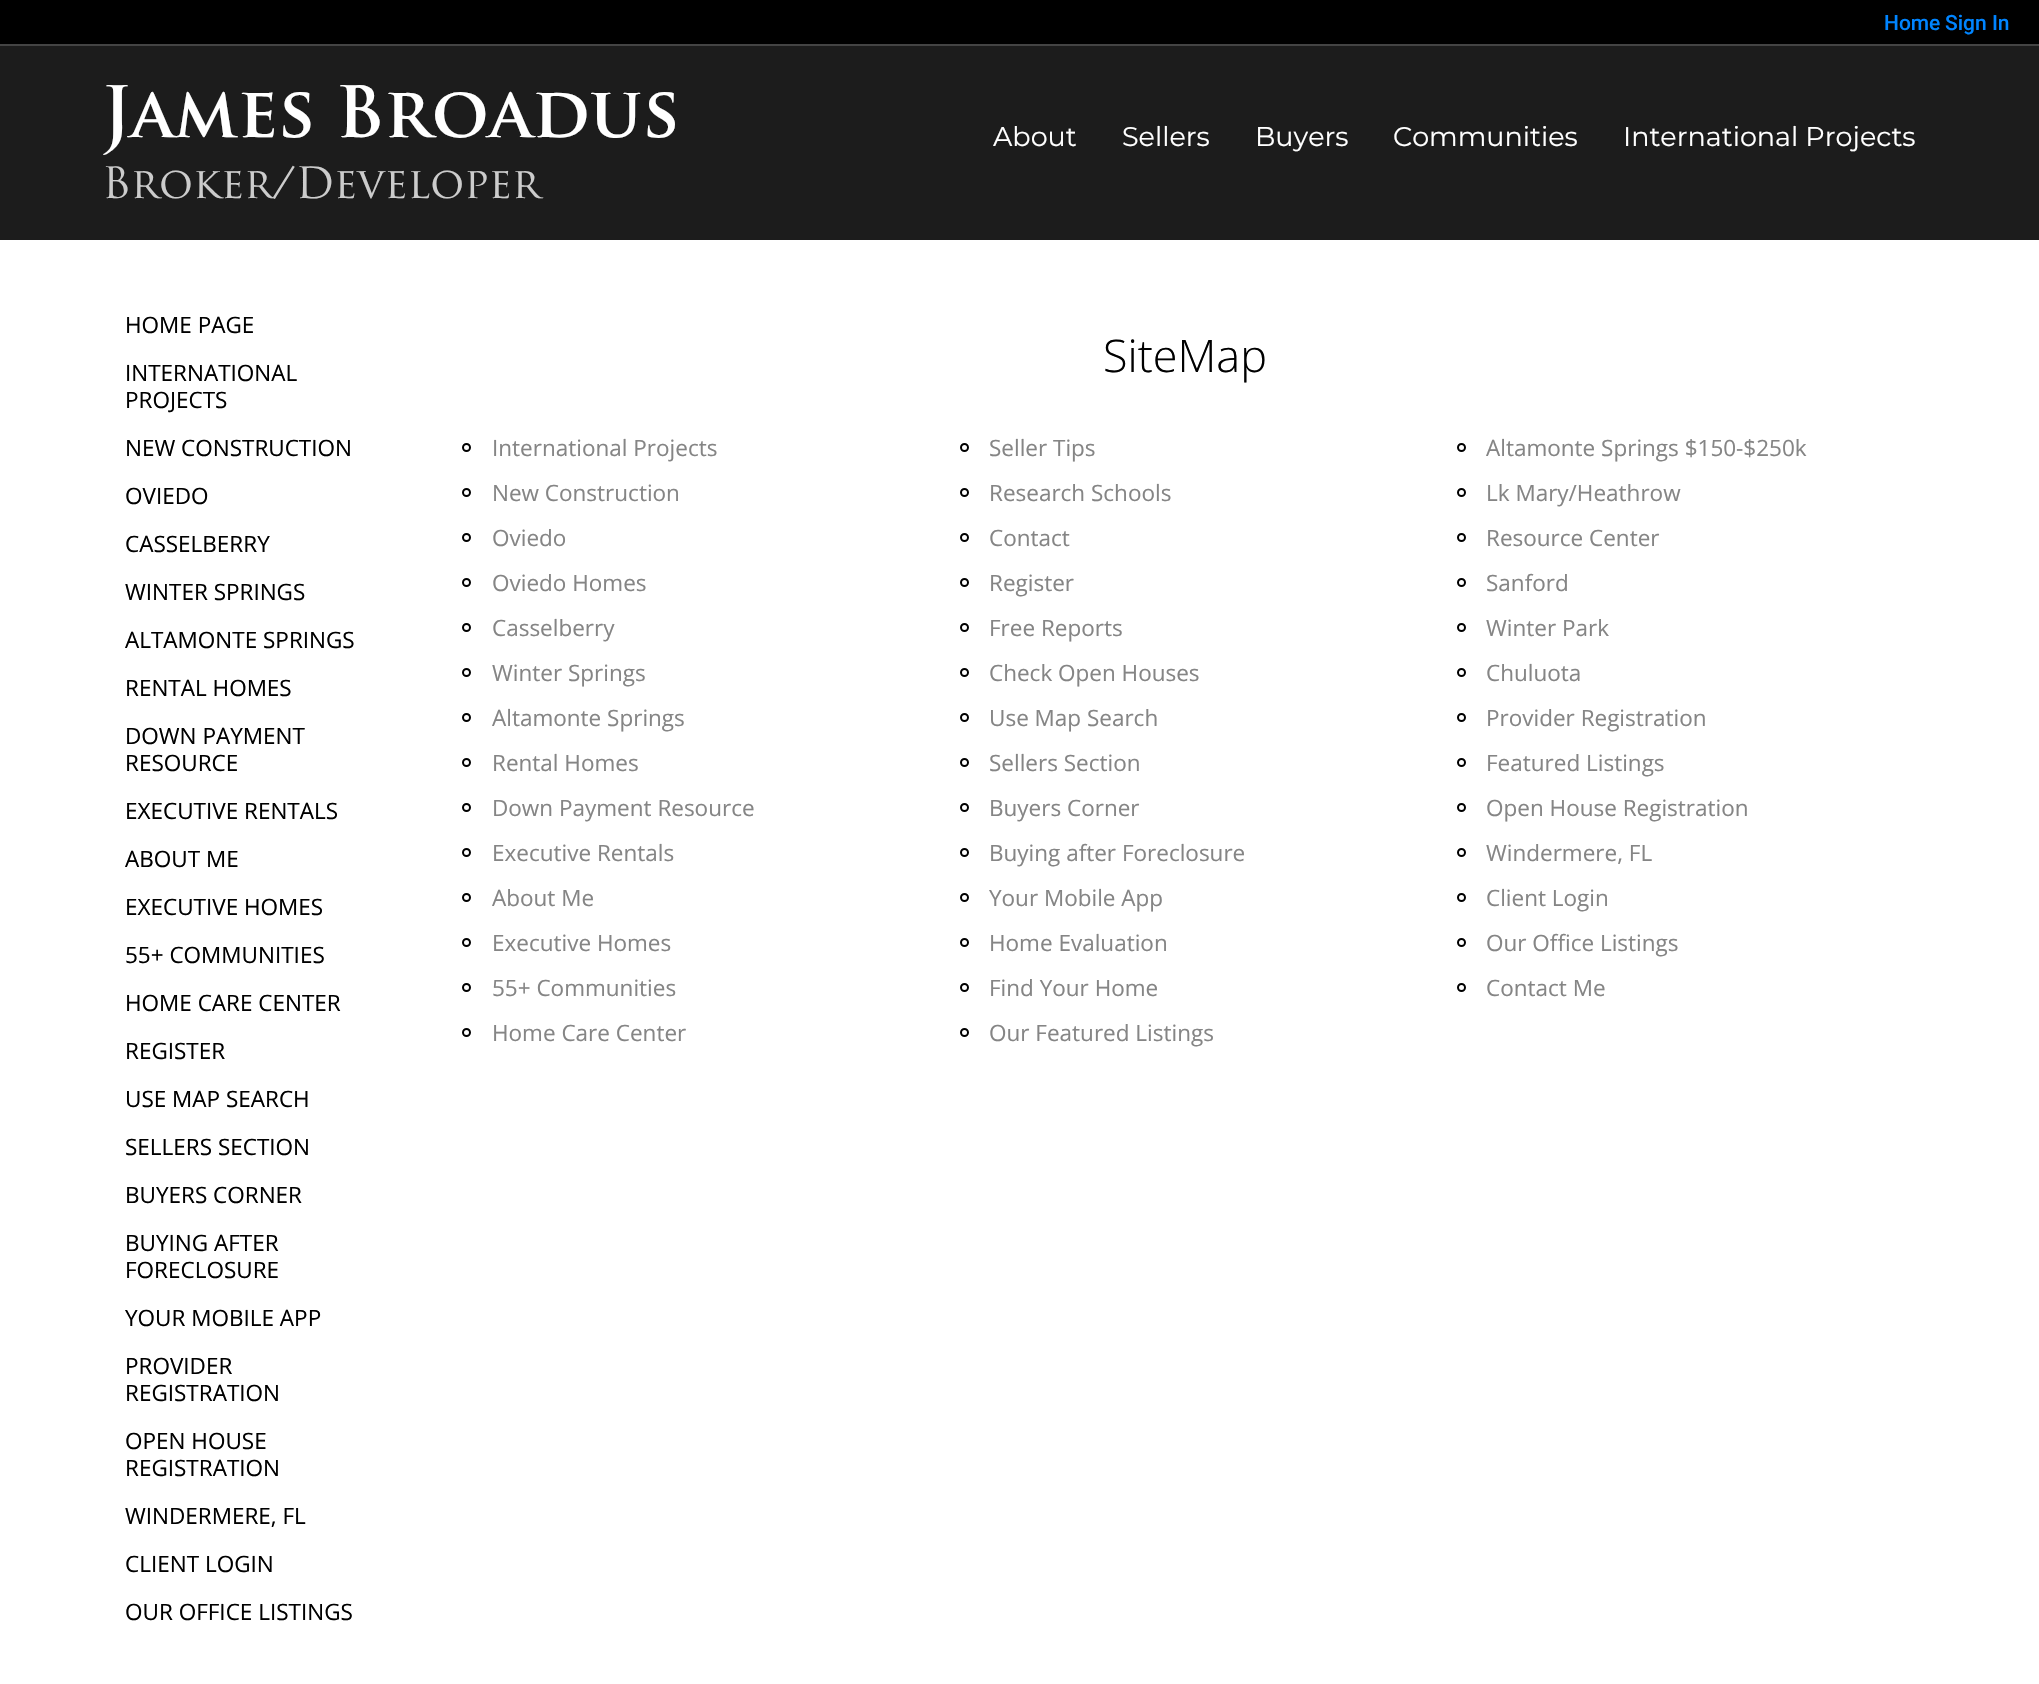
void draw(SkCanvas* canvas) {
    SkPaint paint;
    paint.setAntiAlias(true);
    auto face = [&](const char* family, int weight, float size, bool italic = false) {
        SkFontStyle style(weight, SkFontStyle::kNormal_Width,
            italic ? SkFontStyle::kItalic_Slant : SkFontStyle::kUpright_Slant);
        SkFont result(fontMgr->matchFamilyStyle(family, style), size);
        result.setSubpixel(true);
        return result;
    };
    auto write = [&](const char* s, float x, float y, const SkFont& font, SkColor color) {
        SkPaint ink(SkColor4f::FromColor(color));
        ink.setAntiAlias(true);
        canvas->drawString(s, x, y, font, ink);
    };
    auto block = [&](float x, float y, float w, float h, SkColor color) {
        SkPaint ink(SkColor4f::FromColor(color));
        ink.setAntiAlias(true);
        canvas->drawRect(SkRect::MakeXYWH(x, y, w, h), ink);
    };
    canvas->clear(SkColorSetRGB(28, 28, 28));
    block(0, 0, 2039, 44, SK_ColorBLACK);
    block(0, 44, 2039, 2, SkColorSetRGB(68, 68, 68));
    auto kFont1 = face("Roboto", 500, 21);
    write("Home", 1884, 30, kFont1, SkColorSetRGB(0, 132, 255));
    write("Sign In", 1945, 30, kFont1, SkColorSetRGB(0, 132, 255));
    auto kFont2 = face("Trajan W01", 700, 69);
    write("James Broadus", 102, 137, kFont2, SK_ColorWHITE);
    auto kFont3 = face("Trajan W01", 400, 42);
    write("Broker/Developer", 102, 198, kFont3, SkColorSetRGB(204, 204, 204));
    auto kFont4 = face("Montserrat", 100, 27);
    write("About", 993, 146, kFont4, SK_ColorWHITE);
    write("Sellers", 1122, 146, kFont4, SK_ColorWHITE);
    write("Buyers", 1255, 146, kFont4, SK_ColorWHITE);
    write("Communities", 1393, 146, kFont4, SK_ColorWHITE);
    write("International Projects", 1623, 146, kFont4, SK_ColorWHITE);
    block(0, 240, 2039, 1444, SK_ColorWHITE);
    auto kFont5 = face("Open Sans", 400, 22.5f);
    write("HOME PAGE", 125, 333, kFont5, SK_ColorBLACK);
    write("INTERNATIONAL", 125, 381, kFont5, SK_ColorBLACK);
    write("PROJECTS", 125, 408, kFont5, SK_ColorBLACK);
    write("NEW CONSTRUCTION", 125, 456, kFont5, SK_ColorBLACK);
    write("OVIEDO", 125, 504, kFont5, SK_ColorBLACK);
    write("CASSELBERRY", 125, 552, kFont5, SK_ColorBLACK);
    write("WINTER SPRINGS", 125, 600, kFont5, SK_ColorBLACK);
    write("ALTAMONTE SPRINGS", 125, 648, kFont5, SK_ColorBLACK);
    write("RENTAL HOMES", 125, 696, kFont5, SK_ColorBLACK);
    write("DOWN PAYMENT", 125, 744, kFont5, SK_ColorBLACK);
    write("RESOURCE", 125, 771, kFont5, SK_ColorBLACK);
    write("EXECUTIVE RENTALS", 125, 819, kFont5, SK_ColorBLACK);
    write("ABOUT ME", 125, 867, kFont5, SK_ColorBLACK);
    write("EXECUTIVE HOMES", 125, 915, kFont5, SK_ColorBLACK);
    write("55+ COMMUNITIES", 125, 963, kFont5, SK_ColorBLACK);
    write("HOME CARE CENTER", 125, 1011, kFont5, SK_ColorBLACK);
    write("REGISTER", 125, 1059, kFont5, SK_ColorBLACK);
    write("USE MAP SEARCH", 125, 1107, kFont5, SK_ColorBLACK);
    write("SELLERS SECTION", 125, 1155, kFont5, SK_ColorBLACK);
    write("BUYERS CORNER", 125, 1203, kFont5, SK_ColorBLACK);
    write("BUYING AFTER", 125, 1251, kFont5, SK_ColorBLACK);
    write("FORECLOSURE", 125, 1278, kFont5, SK_ColorBLACK);
    write("YOUR MOBILE APP", 125, 1326, kFont5, SK_ColorBLACK);
    write("PROVIDER", 125, 1374, kFont5, SK_ColorBLACK);
    write("REGISTRATION", 125, 1401, kFont5, SK_ColorBLACK);
    write("OPEN HOUSE", 125, 1449, kFont5, SK_ColorBLACK);
    write("REGISTRATION", 125, 1476, kFont5, SK_ColorBLACK);
    write("WINDERMERE, FL", 125, 1524, kFont5, SK_ColorBLACK);
    write("CLIENT LOGIN", 125, 1572, kFont5, SK_ColorBLACK);
    write("OUR OFFICE LISTINGS", 125, 1620, kFont5, SK_ColorBLACK);
    auto kFont6 = face("Open Sans", 300, 45);
    write("SiteMap", 1103, 372, kFont6, SK_ColorBLACK);
    paint.setStyle(SkPaint::kStroke_Style);
    paint.setStrokeWidth(2);
    paint.setColor(SK_ColorBLACK);
    canvas->drawCircle(466.5f, 447.5f, 3.5f, paint);
    write("International Projects", 492, 456, kFont5, SkColorSetRGB(133, 133, 133));
    canvas->drawCircle(964.5f, 447.5f, 3.5f, paint);
    write("Seller Tips", 989, 456, kFont5, SkColorSetRGB(133, 133, 133));
    canvas->drawCircle(1461.5f, 447.5f, 3.5f, paint);
    write("Altamonte Springs $150-$250k", 1486, 456, kFont5, SkColorSetRGB(133, 133, 133));
    canvas->drawCircle(466.5f, 492.5f, 3.5f, paint);
    write("New Construction", 492, 501, kFont5, SkColorSetRGB(133, 133, 133));
    canvas->drawCircle(964.5f, 492.5f, 3.5f, paint);
    write("Research Schools", 989, 501, kFont5, SkColorSetRGB(133, 133, 133));
    canvas->drawCircle(1461.5f, 492.5f, 3.5f, paint);
    write("Lk Mary/Heathrow", 1486, 501, kFont5, SkColorSetRGB(133, 133, 133));
    canvas->drawCircle(466.5f, 537.5f, 3.5f, paint);
    write("Oviedo", 492, 546, kFont5, SkColorSetRGB(133, 133, 133));
    canvas->drawCircle(964.5f, 537.5f, 3.5f, paint);
    write("Contact", 989, 546, kFont5, SkColorSetRGB(133, 133, 133));
    canvas->drawCircle(1461.5f, 537.5f, 3.5f, paint);
    write("Resource Center", 1486, 546, kFont5, SkColorSetRGB(133, 133, 133));
    canvas->drawCircle(466.5f, 582.5f, 3.5f, paint);
    write("Oviedo Homes", 492, 591, kFont5, SkColorSetRGB(133, 133, 133));
    canvas->drawCircle(964.5f, 582.5f, 3.5f, paint);
    write("Register", 989, 591, kFont5, SkColorSetRGB(133, 133, 133));
    canvas->drawCircle(1461.5f, 582.5f, 3.5f, paint);
    write("Sanford", 1486, 591, kFont5, SkColorSetRGB(133, 133, 133));
    canvas->drawCircle(466.5f, 627.5f, 3.5f, paint);
    write("Casselberry", 492, 636, kFont5, SkColorSetRGB(133, 133, 133));
    canvas->drawCircle(964.5f, 627.5f, 3.5f, paint);
    write("Free Reports", 989, 636, kFont5, SkColorSetRGB(133, 133, 133));
    canvas->drawCircle(1461.5f, 627.5f, 3.5f, paint);
    write("Winter Park", 1486, 636, kFont5, SkColorSetRGB(133, 133, 133));
    canvas->drawCircle(466.5f, 672.5f, 3.5f, paint);
    write("Winter Springs", 492, 681, kFont5, SkColorSetRGB(133, 133, 133));
    canvas->drawCircle(964.5f, 672.5f, 3.5f, paint);
    write("Check Open Houses", 989, 681, kFont5, SkColorSetRGB(133, 133, 133));
    canvas->drawCircle(1461.5f, 672.5f, 3.5f, paint);
    write("Chuluota", 1486, 681, kFont5, SkColorSetRGB(133, 133, 133));
    canvas->drawCircle(466.5f, 717.5f, 3.5f, paint);
    write("Altamonte Springs", 492, 726, kFont5, SkColorSetRGB(133, 133, 133));
    canvas->drawCircle(964.5f, 717.5f, 3.5f, paint);
    write("Use Map Search", 989, 726, kFont5, SkColorSetRGB(133, 133, 133));
    canvas->drawCircle(1461.5f, 717.5f, 3.5f, paint);
    write("Provider Registration", 1486, 726, kFont5, SkColorSetRGB(133, 133, 133));
    canvas->drawCircle(466.5f, 762.5f, 3.5f, paint);
    write("Rental Homes", 492, 771, kFont5, SkColorSetRGB(133, 133, 133));
    canvas->drawCircle(964.5f, 762.5f, 3.5f, paint);
    write("Sellers Section", 989, 771, kFont5, SkColorSetRGB(133, 133, 133));
    canvas->drawCircle(1461.5f, 762.5f, 3.5f, paint);
    write("Featured Listings", 1486, 771, kFont5, SkColorSetRGB(133, 133, 133));
    canvas->drawCircle(466.5f, 807.5f, 3.5f, paint);
    write("Down Payment Resource", 492, 816, kFont5, SkColorSetRGB(133, 133, 133));
    canvas->drawCircle(964.5f, 807.5f, 3.5f, paint);
    write("Buyers Corner", 989, 816, kFont5, SkColorSetRGB(133, 133, 133));
    canvas->drawCircle(1461.5f, 807.5f, 3.5f, paint);
    write("Open House Registration", 1486, 816, kFont5, SkColorSetRGB(133, 133, 133));
    canvas->drawCircle(466.5f, 852.5f, 3.5f, paint);
    write("Executive Rentals", 492, 861, kFont5, SkColorSetRGB(133, 133, 133));
    canvas->drawCircle(964.5f, 852.5f, 3.5f, paint);
    write("Buying after Foreclosure", 989, 861, kFont5, SkColorSetRGB(133, 133, 133));
    canvas->drawCircle(1461.5f, 852.5f, 3.5f, paint);
    write("Windermere, FL", 1486, 861, kFont5, SkColorSetRGB(133, 133, 133));
    canvas->drawCircle(466.5f, 897.5f, 3.5f, paint);
    write("About Me", 492, 906, kFont5, SkColorSetRGB(133, 133, 133));
    canvas->drawCircle(964.5f, 897.5f, 3.5f, paint);
    write("Your Mobile App", 989, 906, kFont5, SkColorSetRGB(133, 133, 133));
    canvas->drawCircle(1461.5f, 897.5f, 3.5f, paint);
    write("Client Login", 1486, 906, kFont5, SkColorSetRGB(133, 133, 133));
    canvas->drawCircle(466.5f, 942.5f, 3.5f, paint);
    write("Executive Homes", 492, 951, kFont5, SkColorSetRGB(133, 133, 133));
    canvas->drawCircle(964.5f, 942.5f, 3.5f, paint);
    write("Home Evaluation", 989, 951, kFont5, SkColorSetRGB(133, 133, 133));
    canvas->drawCircle(1461.5f, 942.5f, 3.5f, paint);
    write("Our Office Listings", 1486, 951, kFont5, SkColorSetRGB(133, 133, 133));
    canvas->drawCircle(466.5f, 987.5f, 3.5f, paint);
    write("55+ Communities", 492, 996, kFont5, SkColorSetRGB(133, 133, 133));
    canvas->drawCircle(964.5f, 987.5f, 3.5f, paint);
    write("Find Your Home", 989, 996, kFont5, SkColorSetRGB(133, 133, 133));
    canvas->drawCircle(1461.5f, 987.5f, 3.5f, paint);
    write("Contact Me", 1486, 996, kFont5, SkColorSetRGB(133, 133, 133));
    canvas->drawCircle(466.5f, 1032.5f, 3.5f, paint);
    write("Home Care Center", 492, 1041, kFont5, SkColorSetRGB(133, 133, 133));
    canvas->drawCircle(964.5f, 1032.5f, 3.5f, paint);
    write("Our Featured Listings", 989, 1041, kFont5, SkColorSetRGB(133, 133, 133));
}
